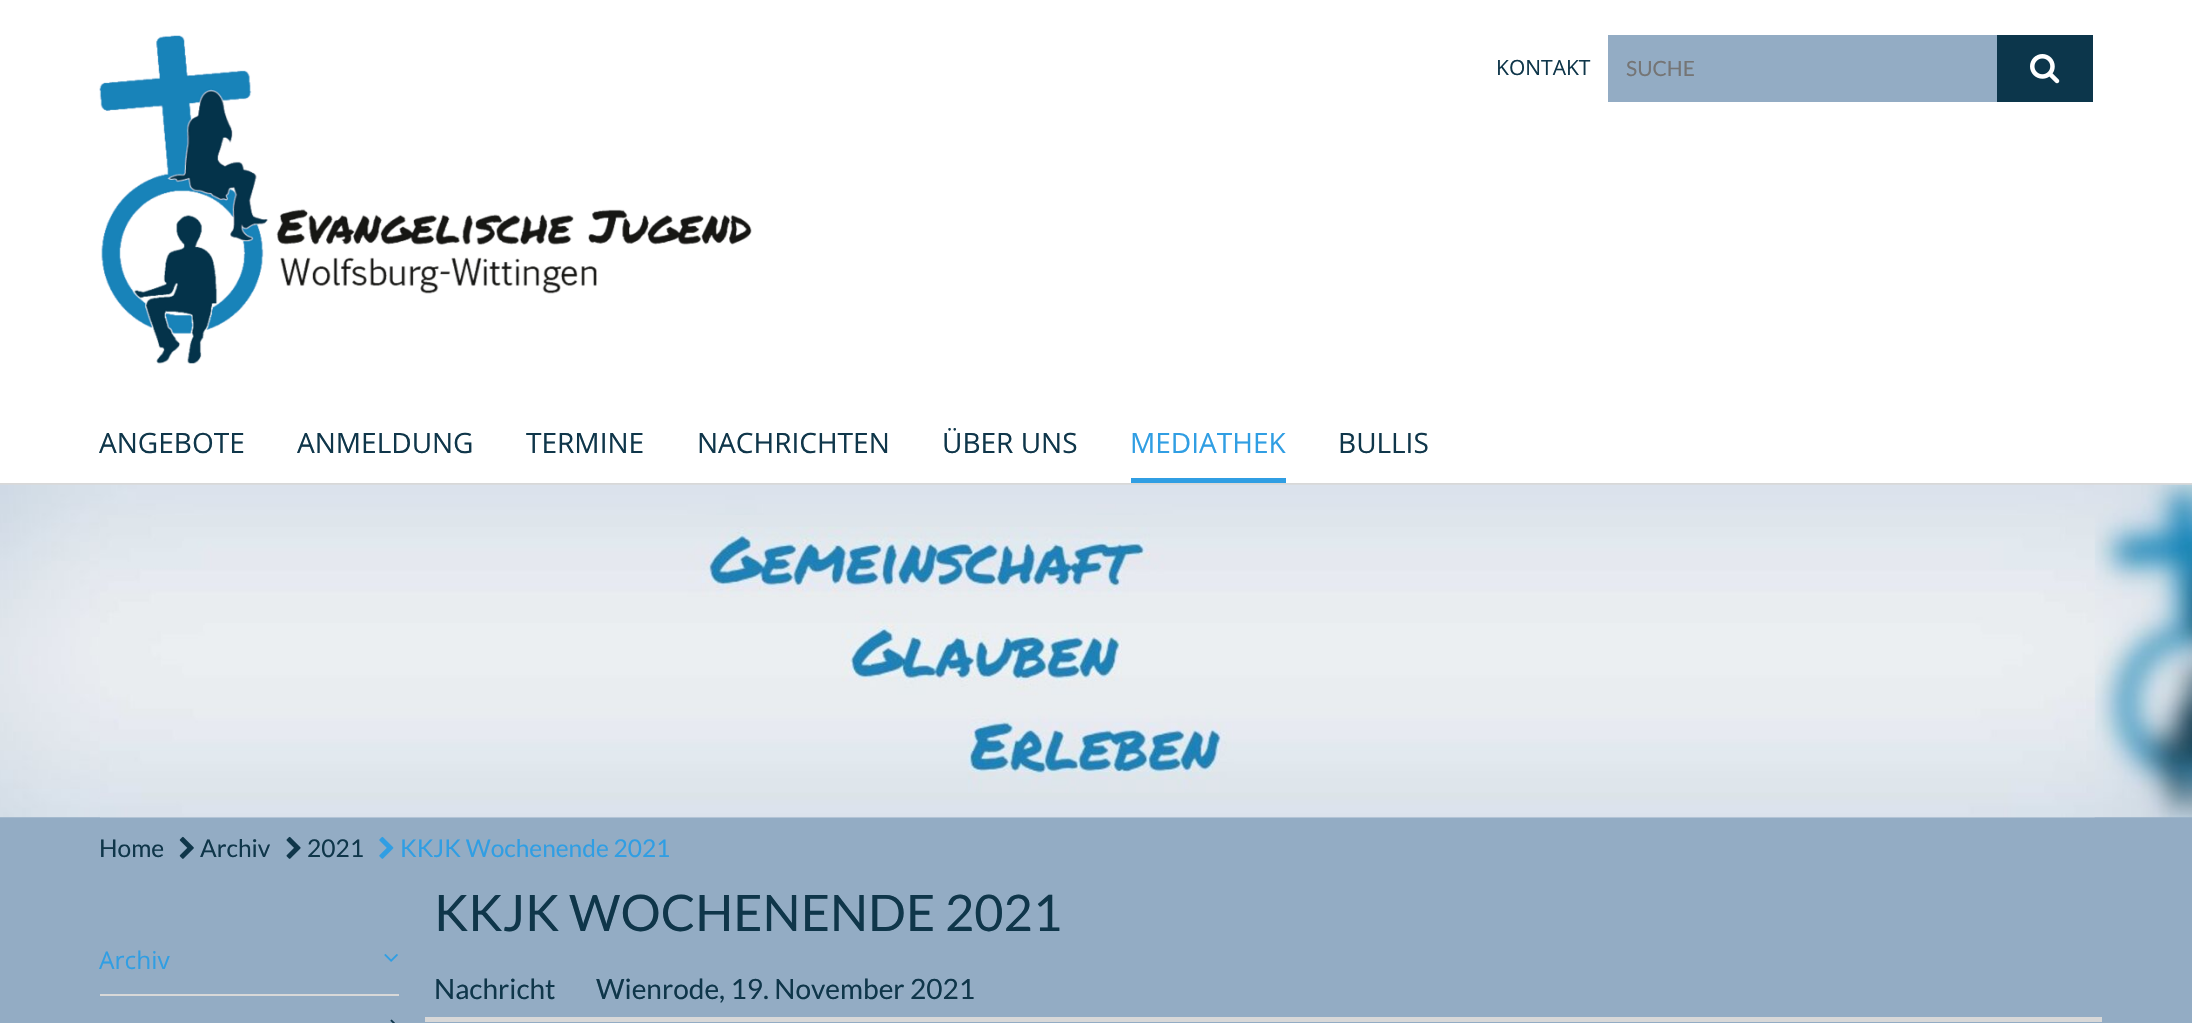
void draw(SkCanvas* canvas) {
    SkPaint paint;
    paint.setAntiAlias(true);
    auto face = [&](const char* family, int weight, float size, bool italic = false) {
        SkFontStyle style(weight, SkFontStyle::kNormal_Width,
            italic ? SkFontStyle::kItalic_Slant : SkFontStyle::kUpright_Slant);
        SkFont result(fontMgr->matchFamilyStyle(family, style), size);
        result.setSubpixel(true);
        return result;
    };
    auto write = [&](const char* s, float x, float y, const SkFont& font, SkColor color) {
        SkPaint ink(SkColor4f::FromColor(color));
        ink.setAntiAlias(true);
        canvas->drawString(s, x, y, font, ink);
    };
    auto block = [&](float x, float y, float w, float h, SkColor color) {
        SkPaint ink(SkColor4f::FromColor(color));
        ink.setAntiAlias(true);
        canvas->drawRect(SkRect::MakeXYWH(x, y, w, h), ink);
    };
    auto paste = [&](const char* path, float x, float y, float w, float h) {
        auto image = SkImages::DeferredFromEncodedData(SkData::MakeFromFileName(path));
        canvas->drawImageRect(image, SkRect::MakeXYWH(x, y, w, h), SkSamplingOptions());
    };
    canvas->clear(SkColorSetRGB(147, 172, 196));
    block(0, 0, 2192, 483, SK_ColorWHITE);
    block(0, 483, 2192, 2, SkColorSetRGB(216, 216, 216));
    paste("pic1.png", 99, 35, 653, 329);
    auto kFont1 = face("Open Sans", 400, 21);
    write("KONTAKT", 1496, 75, kFont1, SkColorSetRGB(15, 54, 74));
    block(1608, 35, 389, 67, SkColorSetRGB(147, 172, 196));
    auto kFont2 = face("Lato", 400, 21);
    write("SUCHE", 1626, 76, kFont2, SkColorSetRGB(117, 117, 117));
    block(1997, 35, 96, 67, SkColorSetRGB(12, 54, 75));
    paste("pic2.png", 2030, 54, 30, 30);
    auto kFont3 = face("Open Sans", 400, 28);
    write("ANGEBOTE", 99, 453, kFont3, SkColorSetRGB(15, 54, 74));
    write("ANMELDUNG", 297, 453, kFont3, SkColorSetRGB(15, 54, 74));
    write("TERMINE", 526, 453, kFont3, SkColorSetRGB(15, 54, 74));
    write("NACHRICHTEN", 697, 453, kFont3, SkColorSetRGB(15, 54, 74));
    write("ÜBER UNS", 942, 453, kFont3, SkColorSetRGB(15, 54, 74));
    block(1131, 478, 155, 5, SkColorSetRGB(48, 158, 227));
    write("MEDIATHEK", 1130, 453, kFont3, SkColorSetRGB(48, 158, 227));
    write("BULLIS", 1338, 453, kFont3, SkColorSetRGB(15, 54, 74));
    paste("pic3.png", 0, 484, 2192, 334);
    paste("pic4.png", 100, 515, 1995, 303);
    auto kFont4 = face("Lato", 400, 24.5f);
    write("Home", 99, 857, kFont4, SkColorSetRGB(15, 54, 74));
    paste("pic5.png", 179, 836, 15, 23);
    write("Archiv", 200, 857, kFont4, SkColorSetRGB(15, 54, 74));
    paste("pic6.png", 286, 836, 15, 23);
    write("2021", 307, 857, kFont4, SkColorSetRGB(15, 54, 74));
    paste("pic7.png", 379, 836, 15, 23);
    write("KKJK Wochenende 2021", 400, 857, kFont4, SkColorSetRGB(48, 158, 227));
    block(100, 994, 299, 2, SkColorSetRGB(216, 216, 216));
    auto kFont5 = face("Open Sans", 400, 24.5f);
    write("Archiv", 99, 969, kFont5, SkColorSetRGB(48, 158, 227));
    paste("pic8.png", 384, 954, 14, 8);
    paste("pic9.png", 390, 1019, 5, 4);
    auto kFont6 = face("Lato", 400, 50.4f);
    write("KKJK WOCHENENDE 2021", 434, 931, kFont6, SkColorSetRGB(15, 54, 74));
    block(425, 1017, 1677, 5, SkColorSetRGB(216, 216, 216));
    auto kFont7 = face("Lato", 400, 28);
    write("Nachricht", 434, 999, kFont7, SkColorSetRGB(15, 54, 74));
    write("Wienrode, 19. November 2021", 596, 999, kFont7, SkColorSetRGB(15, 54, 74));
}
